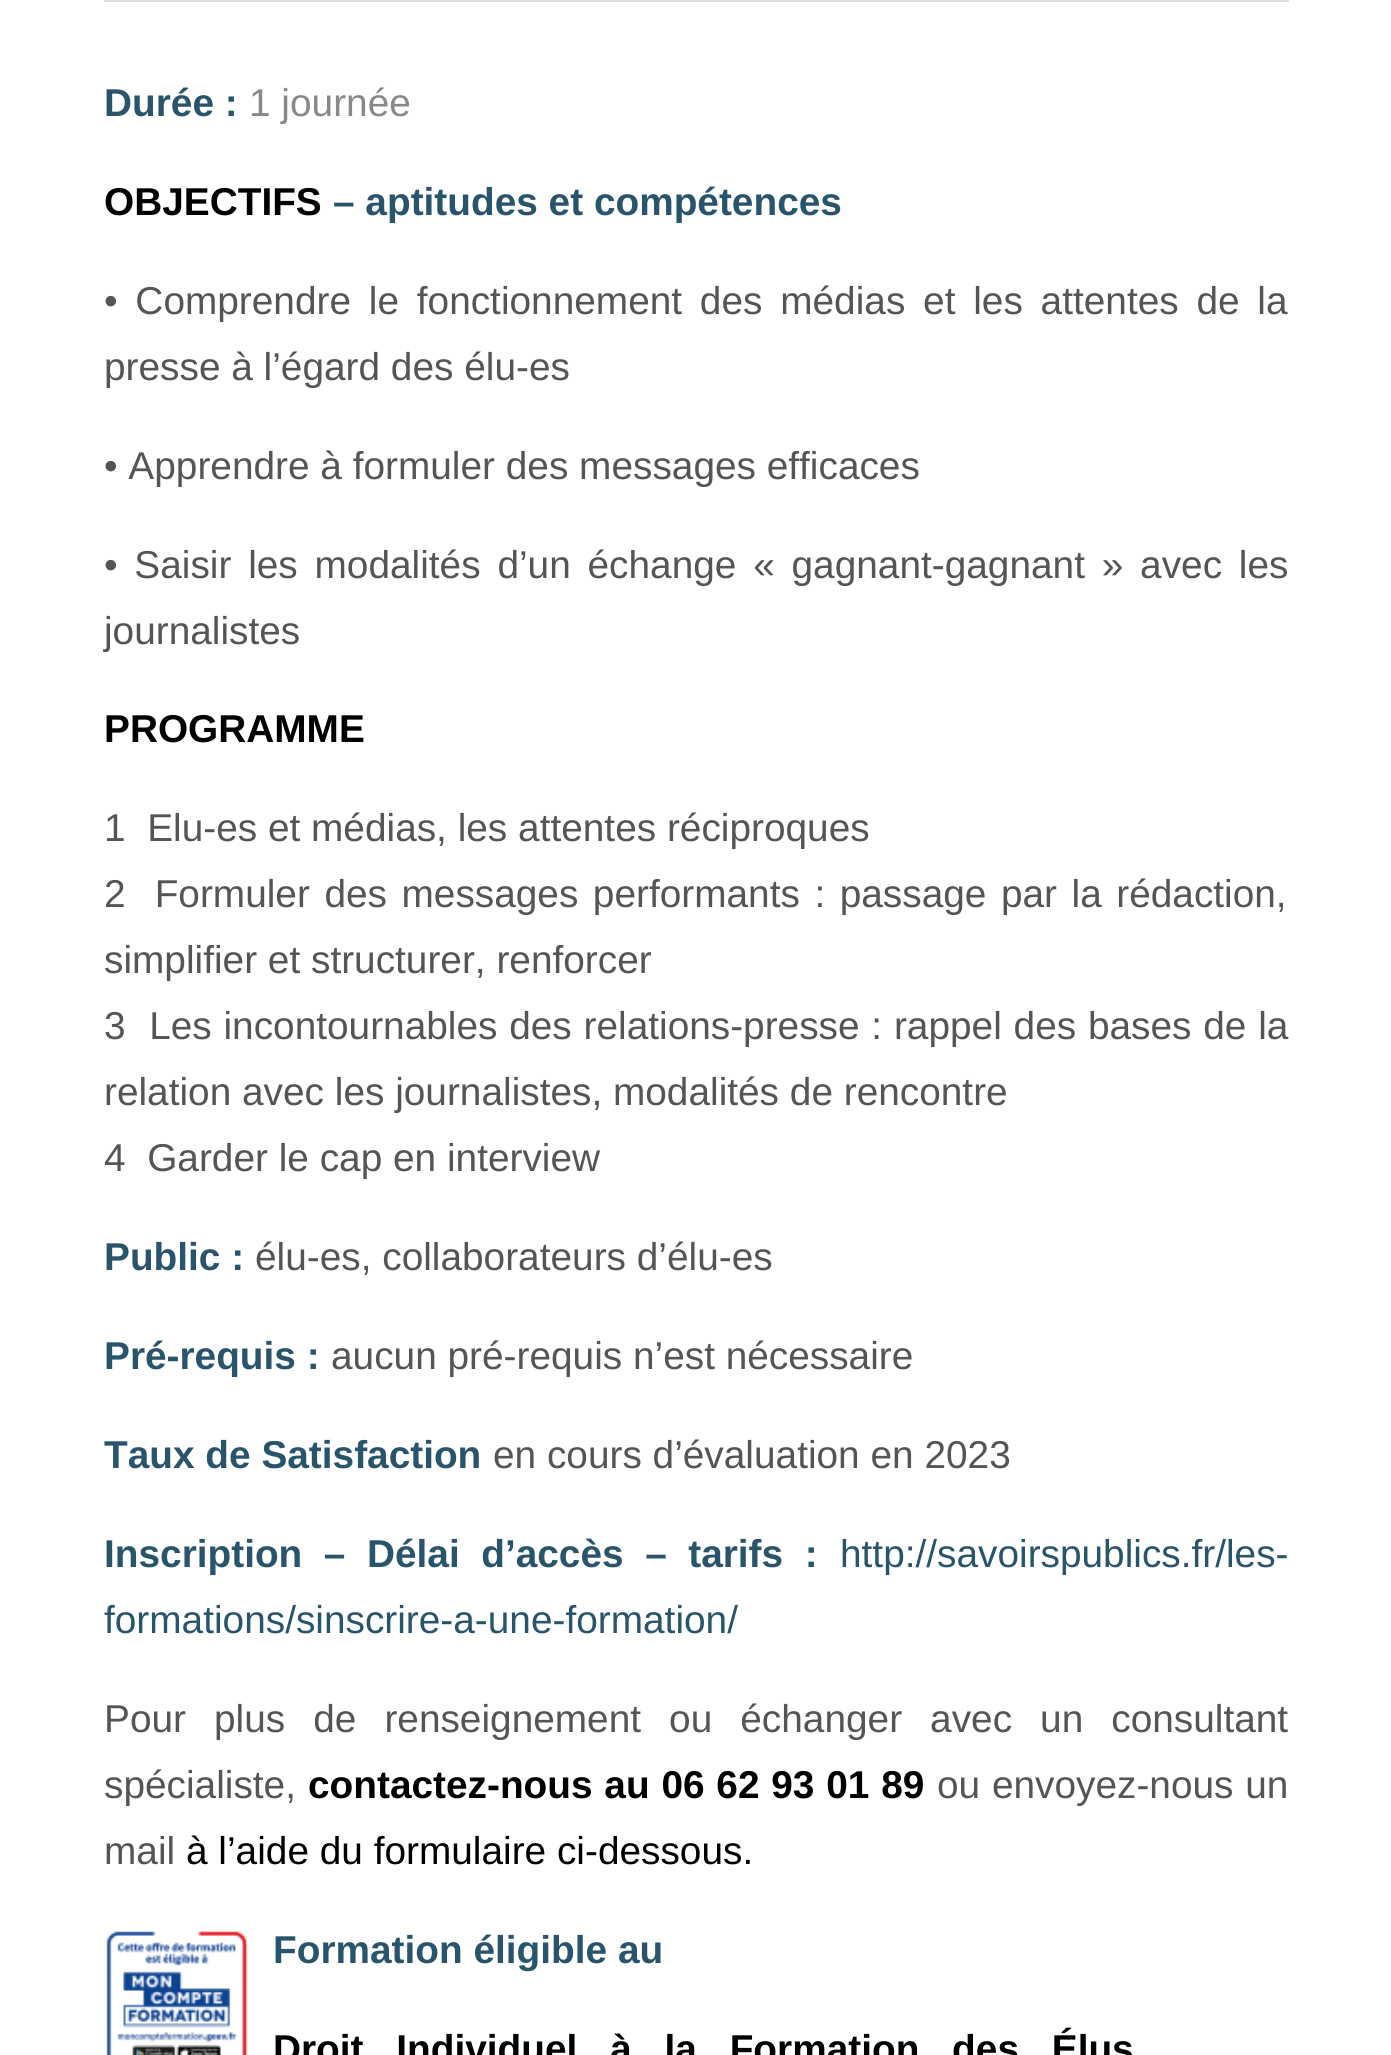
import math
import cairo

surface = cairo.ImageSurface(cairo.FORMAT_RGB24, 1391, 2055)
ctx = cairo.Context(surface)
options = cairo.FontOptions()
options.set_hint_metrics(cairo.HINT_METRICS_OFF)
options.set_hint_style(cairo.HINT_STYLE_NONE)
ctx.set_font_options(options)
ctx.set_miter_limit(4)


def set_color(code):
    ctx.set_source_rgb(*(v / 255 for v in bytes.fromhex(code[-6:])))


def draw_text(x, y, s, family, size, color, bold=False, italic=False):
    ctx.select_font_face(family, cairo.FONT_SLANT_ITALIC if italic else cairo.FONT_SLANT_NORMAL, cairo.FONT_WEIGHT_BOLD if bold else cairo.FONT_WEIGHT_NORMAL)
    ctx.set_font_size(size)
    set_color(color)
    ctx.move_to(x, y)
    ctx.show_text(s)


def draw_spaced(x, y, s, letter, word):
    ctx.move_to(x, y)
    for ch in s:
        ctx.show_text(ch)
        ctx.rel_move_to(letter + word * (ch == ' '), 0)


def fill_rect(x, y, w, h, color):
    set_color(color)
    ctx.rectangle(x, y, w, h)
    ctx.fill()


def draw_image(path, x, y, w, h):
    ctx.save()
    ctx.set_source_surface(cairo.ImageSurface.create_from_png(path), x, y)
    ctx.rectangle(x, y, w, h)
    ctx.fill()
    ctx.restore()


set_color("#ffffff")
ctx.paint()
fill_rect(104, 0, 1185, 2, "#dddddd")
draw_text(104, 116, "Durée :", "Liberation Sans", 38.8, "#29556c", bold=True)
draw_text(249, 116, "1 journée", "Liberation Sans", 38.8, "#888888")
draw_text(104, 215, "OBJECTIFS", "Liberation Sans", 38.8, "#000000", bold=True)
draw_text(333, 215, "– aptitudes et compétences", "Liberation Sans", 38.8, "#29556c", bold=True)
ctx.select_font_face("Liberation Sans")
set_color("#555555")
draw_spaced(104, 314, "• Comprendre le fonctionnement des médias et les attentes de la", 0, 7)
draw_text(104, 380, "presse à l’égard des élu-es", "Liberation Sans", 38.8, "#555555")
draw_text(104, 479, "• Apprendre à formuler des messages efficaces", "Liberation Sans", 38.8, "#555555")
draw_spaced(104, 578, "• Saisir les modalités d’un échange « gagnant-gagnant » avec les", 0, 6)
draw_text(104, 644, "journalistes", "Liberation Sans", 38.8, "#555555")
draw_text(104, 742, "PROGRAMME", "Liberation Sans", 38.8, "#000000", bold=True)
draw_text(104, 841, "1  Elu-es et médias, les attentes réciproques", "Liberation Sans", 38.8, "#555555")
draw_spaced(104, 907, "2  Formuler des messages performants : passage par la rédaction,", 0, 3.75)
draw_text(104, 973, "simplifier et structurer, renforcer", "Liberation Sans", 38.8, "#555555")
draw_spaced(104, 1039, "3  Les incontournables des relations-presse : rappel des bases de la", 0, 1)
draw_text(104, 1105, "relation avec les journalistes, modalités de rencontre", "Liberation Sans", 38.8, "#555555")
draw_text(104, 1171, "4  Garder le cap en interview", "Liberation Sans", 38.8, "#555555")
draw_text(104, 1270, "Public :", "Liberation Sans", 38.8, "#29556c", bold=True)
draw_text(255, 1270, "élu-es, collaborateurs d’élu-es", "Liberation Sans", 38.8, "#555555")
draw_text(104, 1369, "Pré-requis :", "Liberation Sans", 38.8, "#29556c", bold=True)
draw_text(331, 1369, "aucun pré-requis n’est nécessaire", "Liberation Sans", 38.8, "#555555")
draw_text(104, 1468, "Taux de Satisfaction", "Liberation Sans", 38.8, "#29556c", bold=True)
draw_text(493, 1468, "en cours d’évaluation en 2023", "Liberation Sans", 38.8, "#555555")
ctx.select_font_face("Liberation Sans", cairo.FONT_SLANT_NORMAL, cairo.FONT_WEIGHT_BOLD)
set_color("#29556c")
draw_spaced(104, 1567, "Inscription – Délai d’accès – tarifs :", 0, 10.75)
draw_text(840, 1567, "http://savoirspublics.fr/les-", "Liberation Sans", 38.8, "#29556c")
draw_text(104, 1633, "formations/sinscrire-a-une-formation/", "Liberation Sans", 38.8, "#29556c")
set_color("#555555")
draw_spaced(104, 1732, "Pour plus de renseignement ou échanger avec un consultant", 0, 17.25)
draw_text(104, 1798, "spécialiste,", "Liberation Sans", 38.8, "#555555")
ctx.select_font_face("Liberation Sans", cairo.FONT_SLANT_NORMAL, cairo.FONT_WEIGHT_BOLD)
set_color("#000000")
draw_spaced(308, 1798, "contactez-nous au 06 62 93 01 89", 0, 1)
ctx.select_font_face("Liberation Sans")
set_color("#555555")
draw_spaced(937, 1798, "ou envoyez-nous un", 0, 1)
draw_text(104, 1864, "mail", "Liberation Sans", 38.8, "#555555")
draw_text(186, 1864, "à l’aide du formulaire ci-dessous.", "Liberation Sans", 38.8, "#000000")
draw_image("assets/img1.png", 106, 1931, 142, 124)
draw_text(273, 1963, "Formation éligible au", "Liberation Sans", 38.8, "#29556c", bold=True)
set_color("#000000")
draw_spaced(273, 2062, "Droit Individuel à la Formation des Élus", 0, 22)
surface.write_to_png("output.png")
